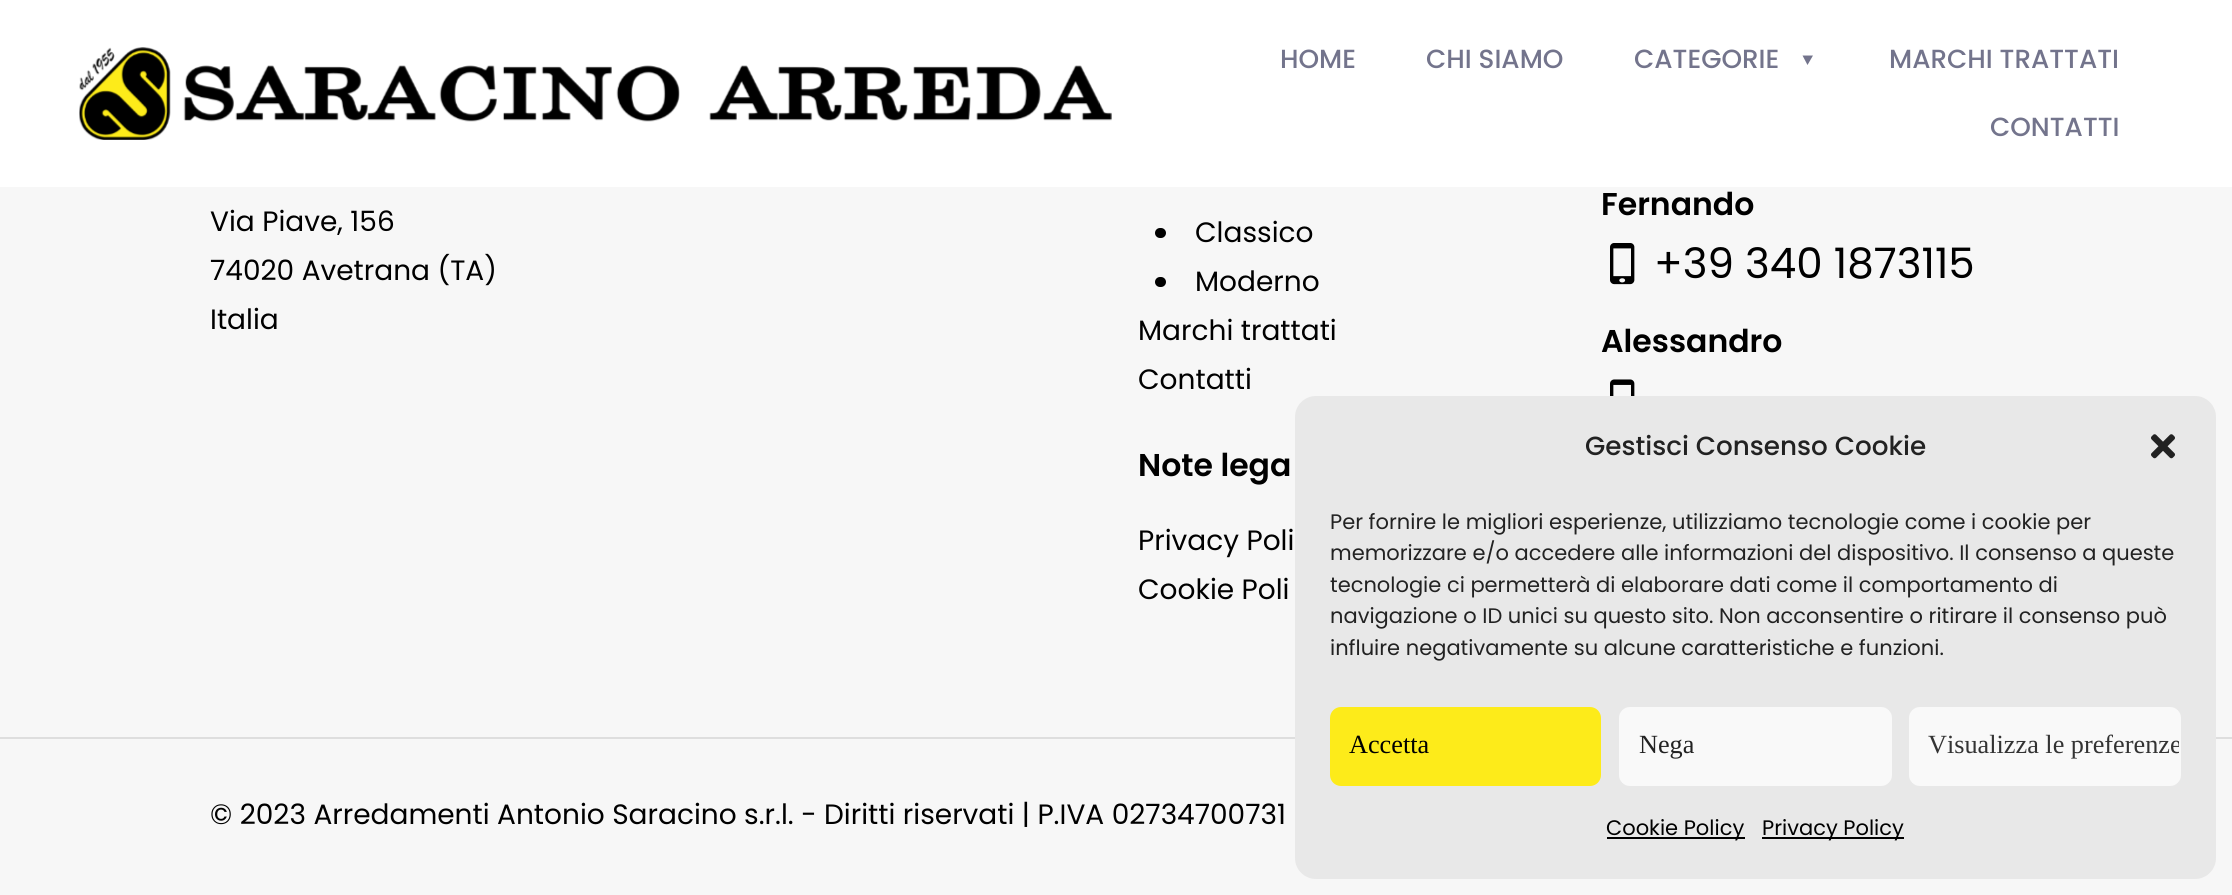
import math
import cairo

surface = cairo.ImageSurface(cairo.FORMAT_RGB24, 2232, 895)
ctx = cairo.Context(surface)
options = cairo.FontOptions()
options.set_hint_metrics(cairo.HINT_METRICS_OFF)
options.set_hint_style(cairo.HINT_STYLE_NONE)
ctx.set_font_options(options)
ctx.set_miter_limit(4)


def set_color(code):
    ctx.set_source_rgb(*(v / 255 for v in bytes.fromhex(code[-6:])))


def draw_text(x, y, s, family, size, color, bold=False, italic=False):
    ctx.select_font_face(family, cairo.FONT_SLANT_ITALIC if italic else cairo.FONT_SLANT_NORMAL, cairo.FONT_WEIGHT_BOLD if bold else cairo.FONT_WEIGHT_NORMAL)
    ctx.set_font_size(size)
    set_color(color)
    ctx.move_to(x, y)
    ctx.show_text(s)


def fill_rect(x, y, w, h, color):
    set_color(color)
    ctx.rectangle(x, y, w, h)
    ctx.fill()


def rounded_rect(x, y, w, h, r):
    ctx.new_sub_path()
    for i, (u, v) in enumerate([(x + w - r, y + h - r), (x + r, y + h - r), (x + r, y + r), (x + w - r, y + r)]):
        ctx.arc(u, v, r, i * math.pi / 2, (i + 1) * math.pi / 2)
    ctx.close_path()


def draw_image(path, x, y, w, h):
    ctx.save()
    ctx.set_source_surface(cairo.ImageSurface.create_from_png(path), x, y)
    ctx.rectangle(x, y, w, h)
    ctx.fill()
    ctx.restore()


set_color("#f7f7f7")
ctx.paint()
fill_rect(0, 0, 2232, 187, "#ffffff")
draw_image("assets/img1.png", 79, 47, 1033, 93)
draw_text(1280, 68, "HOME", "Poppins Medium", 26.25, "#73748c")
draw_text(1426, 68, "CHI SIAMO", "Poppins Medium", 26.25, "#73748c")
draw_text(1634, 68, "CATEGORIE", "Poppins Medium", 26.25, "#73748c")
ctx.new_path()
ctx.move_to(1813, 55.5)
ctx.line_to(1807.5, 65)
ctx.line_to(1802.5, 55.5)
ctx.close_path()
ctx.fill()
draw_text(1889, 68, "MARCHI TRATTATI", "Poppins Medium", 26.25, "#73748c")
draw_text(1990, 136, "CONTATTI", "Poppins Medium", 26.25, "#73748c")
draw_text(210, 231, "Via Piave, 156", "Poppins", 28, "#000000")
draw_text(210, 280, "74020 Avetrana (TA)", "Poppins", 28, "#000000")
draw_text(210, 329, "Italia", "Poppins", 28, "#000000")
rounded_rect(1155, 228, 11, 10, 5)
ctx.fill()
draw_text(1195, 242, "Classico", "Poppins", 28, "#000000")
rounded_rect(1155, 277, 11, 10, 5)
ctx.fill()
draw_text(1195, 291, "Moderno", "Poppins", 28, "#000000")
draw_text(1138, 340, "Marchi trattati", "Poppins", 28, "#000000")
draw_text(1138, 389, "Contatti", "Poppins", 28, "#000000")
draw_text(1138, 476, "Note lega", "Poppins SemiBold", 31.5, "#000000")
draw_text(1138, 550, "Privacy Poli", "Poppins", 28, "#000000")
draw_text(1138, 599, "Cookie Poli", "Poppins", 28, "#000000")
draw_text(1601, 215, "Fernando", "Poppins SemiBold", 31.5, "#000000")
draw_image("assets/img2.png", 1610, 243, 25, 42)
draw_text(1654, 278, "+39 340 1873115", "Poppins", 42, "#000000")
draw_text(1601, 352, "Alessandro", "Poppins SemiBold", 31.5, "#000000")
draw_image("assets/img3.png", 1610, 379, 25, 17)
fill_rect(0, 737, 2232, 2, "#dedede")
draw_text(210, 824, "© 2023 Arredamenti Antonio Saracino s.r.l. - Diritti riservati | P.IVA 02734700731", "Poppins", 28, "#000000")
set_color("#e8e8e8")
rounded_rect(1295, 396, 921, 483, 21)
ctx.fill()
draw_text(1585, 455, "Gestisci Consenso Cookie", "Poppins Medium", 26.25, "#222222")
draw_image("assets/img4.png", 2151, 434, 24, 25)
draw_text(1330, 529, "Per fornire le migliori esperienze, utilizziamo tecnologie come i cookie per", "Poppins", 21, "#222222")
draw_text(1330, 560, "memorizzare e/o accedere alle informazioni del dispositivo. Il consenso a queste", "Poppins", 21, "#222222")
draw_text(1330, 592, "tecnologie ci permetterà di elaborare dati come il comportamento di", "Poppins", 21, "#222222")
draw_text(1330, 623, "navigazione o ID unici su questo sito. Non acconsentire o ritirare il consenso può", "Poppins", 21, "#222222")
draw_text(1330, 655, "influire negativamente su alcune caratteristiche e funzioni.", "Poppins", 21, "#222222")
set_color("#fdeb1a")
rounded_rect(1331, 708, 269, 77, 10)
ctx.fill_preserve()
ctx.stroke()
draw_text(1349, 753, "Accetta", "Liberation Serif", 26.25, "#000000")
set_color("#f9f9f9")
rounded_rect(1620, 708, 271, 77, 10)
ctx.fill_preserve()
ctx.stroke()
draw_text(1639, 753, "Nega", "Liberation Serif", 26.25, "#222222")
set_color("#f9f9f9")
rounded_rect(1910, 708, 270, 77, 10)
ctx.fill_preserve()
ctx.stroke()
ctx.save()
rounded_rect(1911, 709, 268, 75, 9)
ctx.clip()
draw_text(1928, 753, "Visualizza le preferenze", "Liberation Serif", 26.25, "#333333")
ctx.restore()
fill_rect(1607, 837, 138, 2, "#000000")
draw_text(1606, 835, "Cookie Policy", "Poppins", 21, "#000000")
fill_rect(1762, 837, 142, 2, "#000000")
draw_text(1762, 835, "Privacy Policy", "Poppins", 21, "#000000")
surface.write_to_png("output.png")
